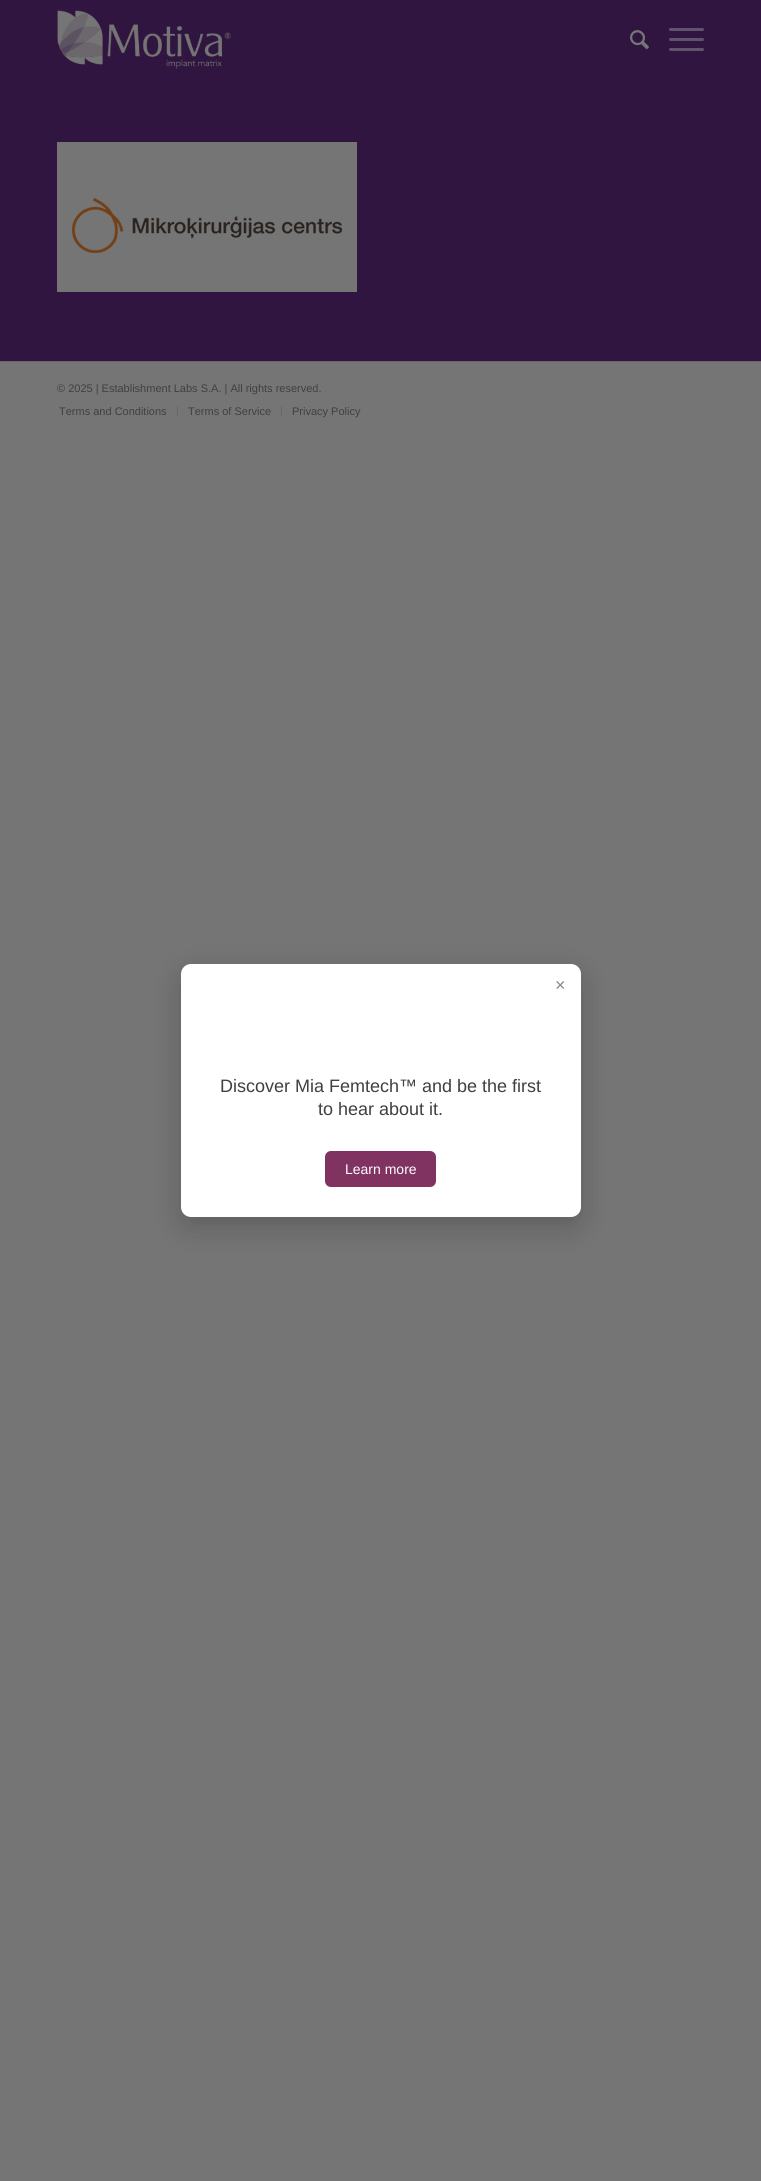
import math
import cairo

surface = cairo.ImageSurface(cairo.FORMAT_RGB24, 761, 2181)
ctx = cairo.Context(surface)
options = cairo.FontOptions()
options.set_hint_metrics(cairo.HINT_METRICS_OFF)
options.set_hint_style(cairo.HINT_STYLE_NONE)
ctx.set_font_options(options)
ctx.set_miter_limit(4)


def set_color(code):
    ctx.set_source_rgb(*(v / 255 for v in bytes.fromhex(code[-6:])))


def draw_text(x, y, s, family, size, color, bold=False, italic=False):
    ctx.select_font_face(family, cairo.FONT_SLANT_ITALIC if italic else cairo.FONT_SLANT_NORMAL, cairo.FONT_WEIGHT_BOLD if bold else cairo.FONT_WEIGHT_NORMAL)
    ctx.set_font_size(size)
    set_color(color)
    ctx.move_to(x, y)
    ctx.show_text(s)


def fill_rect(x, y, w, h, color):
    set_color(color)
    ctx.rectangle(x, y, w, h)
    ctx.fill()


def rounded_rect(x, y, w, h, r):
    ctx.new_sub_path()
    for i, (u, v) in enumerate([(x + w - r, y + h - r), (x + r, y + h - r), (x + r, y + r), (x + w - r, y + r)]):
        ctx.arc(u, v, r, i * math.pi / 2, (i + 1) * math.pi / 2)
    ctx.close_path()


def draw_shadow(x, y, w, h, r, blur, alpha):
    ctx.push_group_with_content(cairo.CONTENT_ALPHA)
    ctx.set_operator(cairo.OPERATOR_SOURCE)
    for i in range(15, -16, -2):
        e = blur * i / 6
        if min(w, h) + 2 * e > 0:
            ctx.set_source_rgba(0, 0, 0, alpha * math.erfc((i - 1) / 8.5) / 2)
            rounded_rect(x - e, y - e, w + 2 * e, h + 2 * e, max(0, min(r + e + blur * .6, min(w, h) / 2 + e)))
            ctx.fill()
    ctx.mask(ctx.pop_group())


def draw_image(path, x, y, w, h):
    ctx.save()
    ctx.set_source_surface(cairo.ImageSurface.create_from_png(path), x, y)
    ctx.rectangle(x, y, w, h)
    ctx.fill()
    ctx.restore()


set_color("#757575")
ctx.paint()
fill_rect(0, 0, 761, 361, "#2f153f")
draw_image("assets/img1.png", 57, 10, 174, 59)
draw_image("assets/img2.png", 630, 30, 19, 20)
set_color("#61536b")
rounded_rect(669, 38, 35, 3, 1.5)
ctx.fill()
rounded_rect(669, 28, 35, 3, 1.5)
ctx.fill()
rounded_rect(669, 48, 35, 3, 1.5)
ctx.fill()
draw_image("assets/img3.png", 57, 142, 300, 150)
fill_rect(0, 361, 761, 1, "#676767")
draw_text(57, 392, "© 2025 | Establishment Labs S.A. | All rights reserved.", "Liberation Sans", 11, "#404040")
draw_text(59, 415, "Terms and Conditions", "Liberation Sans", 11, "#404040")
fill_rect(177, 406, 1, 10, "#676767")
draw_text(188, 415, "Terms of Service", "Liberation Sans", 11, "#404040")
fill_rect(281, 406, 1, 10, "#676767")
draw_text(292, 415, "Privacy Policy", "Liberation Sans", 11, "#404040")
set_color("#000000")
draw_shadow(181, 974, 400, 253, 10, 15, 0.2)
set_color("#ffffff")
rounded_rect(181, 964, 400, 253, 10)
ctx.fill()
draw_text(555, 991, "×", "Liberation Sans", 18, "#888888")
draw_text(220, 1092, "Discover Mia Femtech™ and be the first", "Liberation Sans", 18, "#404040")
draw_text(318, 1115, "to hear about it.", "Liberation Sans", 18, "#404040")
set_color("#803361")
rounded_rect(325, 1151, 111, 36, 6)
ctx.fill()
draw_text(345, 1174, "Learn more", "Liberation Sans", 14, "#ffffff")
surface.write_to_png("output.png")
